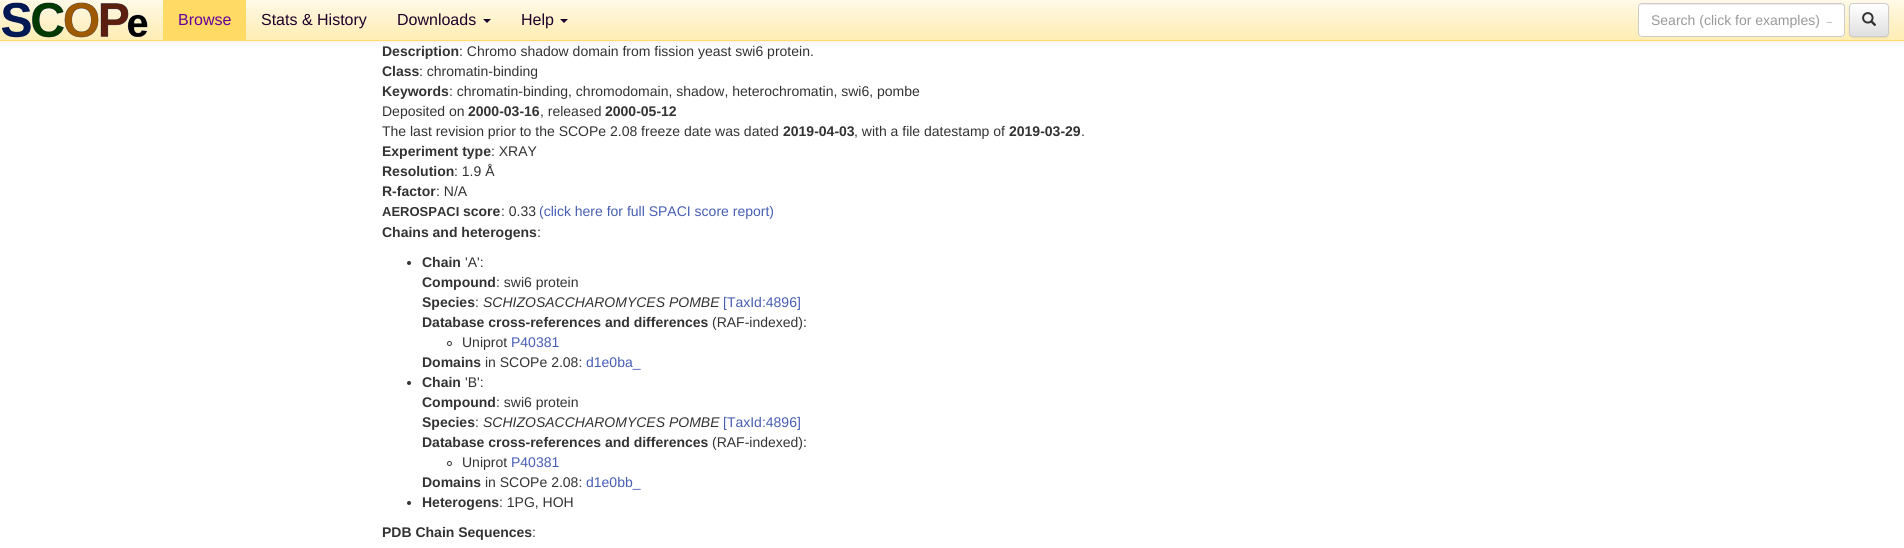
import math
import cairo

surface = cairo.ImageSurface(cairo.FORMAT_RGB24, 1904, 548)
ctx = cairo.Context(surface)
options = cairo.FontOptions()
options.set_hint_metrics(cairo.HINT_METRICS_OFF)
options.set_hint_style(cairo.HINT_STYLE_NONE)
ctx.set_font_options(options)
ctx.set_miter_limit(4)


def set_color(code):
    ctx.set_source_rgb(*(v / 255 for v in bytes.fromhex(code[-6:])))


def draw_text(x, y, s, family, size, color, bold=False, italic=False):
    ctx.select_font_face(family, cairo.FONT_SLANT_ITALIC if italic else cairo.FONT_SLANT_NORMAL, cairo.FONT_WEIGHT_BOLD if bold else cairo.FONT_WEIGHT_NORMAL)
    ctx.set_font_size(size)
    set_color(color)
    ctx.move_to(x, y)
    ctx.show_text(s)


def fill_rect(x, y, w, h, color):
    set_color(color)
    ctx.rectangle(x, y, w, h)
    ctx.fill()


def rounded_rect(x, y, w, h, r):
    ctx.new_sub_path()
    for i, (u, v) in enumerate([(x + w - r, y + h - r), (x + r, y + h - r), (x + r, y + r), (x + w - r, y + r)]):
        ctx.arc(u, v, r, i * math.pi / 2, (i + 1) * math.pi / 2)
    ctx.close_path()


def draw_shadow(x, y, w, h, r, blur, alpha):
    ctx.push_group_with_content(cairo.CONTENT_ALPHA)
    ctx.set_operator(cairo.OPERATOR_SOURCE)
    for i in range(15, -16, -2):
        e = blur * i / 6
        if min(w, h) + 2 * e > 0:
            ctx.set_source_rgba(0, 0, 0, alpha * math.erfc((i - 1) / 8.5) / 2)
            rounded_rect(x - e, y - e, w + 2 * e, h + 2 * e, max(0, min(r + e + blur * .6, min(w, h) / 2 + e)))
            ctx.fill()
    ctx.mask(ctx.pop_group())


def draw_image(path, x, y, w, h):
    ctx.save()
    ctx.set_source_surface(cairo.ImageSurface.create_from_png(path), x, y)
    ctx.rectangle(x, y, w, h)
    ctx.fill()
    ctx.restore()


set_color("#ffffff")
ctx.paint()
set_color("#000000")
draw_shadow(0, 1, 1904, 41, 0, 2.5, 0.07)
gradient = cairo.LinearGradient(952, 0, 952, 40)
gradient.add_color_stop_rgba(0, 1, 0.976, 0.902, 1)
gradient.add_color_stop_rgba(1, 1, 0.929, 0.702, 1)
ctx.set_source(gradient)
ctx.rectangle(0, 1, 1904, 39)
ctx.fill()
fill_rect(0, 0, 1904, 1, "#fffae9")
fill_rect(0, 40, 1904, 1, "#ffda65")
draw_image("assets/img1.png", 2, 2, 146, 36)
fill_rect(163, 0, 83, 40, "#ffda65")
draw_text(178, 25, "Browse", "Liberation Sans", 16, "#660099")
draw_text(261, 25, "Stats & History", "Liberation Sans", 16, "#1d002b")
draw_text(397, 25, "Downloads", "Liberation Sans", 16, "#1d002b")
ctx.new_path()
ctx.move_to(483, 19)
ctx.line_to(491, 19)
ctx.line_to(487, 23)
ctx.close_path()
ctx.fill()
draw_text(521, 25, "Help", "Liberation Sans", 16, "#1d002b")
ctx.new_path()
ctx.move_to(560, 19)
ctx.line_to(568, 19)
ctx.line_to(564, 23)
ctx.close_path()
ctx.fill()
set_color("#ffffff")
rounded_rect(1638, 3, 207, 34, 4)
ctx.fill()
set_color("#ececec")
ctx.new_path()
ctx.move_to(1642, 5)
ctx.line_to(1841, 5)
ctx.curve_to(1843, 5, 1844, 6, 1844, 8)
ctx.curve_to(1844, 6, 1843, 4, 1841, 4)
ctx.line_to(1642, 4)
ctx.curve_to(1640, 4, 1639, 6, 1639, 8)
ctx.curve_to(1639, 6, 1640, 5, 1642, 5)
ctx.close_path()
ctx.fill()
rounded_rect(1638.5, 3.5, 206, 33, 3.5)
set_color("#cccccc")
ctx.set_line_width(1)
ctx.stroke()
ctx.save()
ctx.rectangle(1651, 12, 181, 16)
ctx.clip()
draw_text(1651, 25, "Search (click for examples) →", "Liberation Sans", 14, "#999999")
ctx.restore()
set_color("#000000")
draw_shadow(1849, 4, 40, 34, 4, 0.5, 0.07)
ctx.save()
rounded_rect(1849, 3, 40, 34, 4)
ctx.clip()
gradient = cairo.LinearGradient(1869, 4, 1869, 36)
gradient.add_color_stop_rgba(0, 1, 1, 1, 1)
gradient.add_color_stop_rgba(1, 0.878, 0.878, 0.878, 1)
ctx.set_source(gradient)
ctx.rectangle(1849, 4, 40, 32)
ctx.fill()
ctx.restore()
rounded_rect(1849.5, 3.5, 39, 33, 3.5)
set_color("#cccccc")
ctx.stroke()
draw_image("assets/img2.png", 1862, 12, 15, 14)
draw_text(382, 56, "Description", "Liberation Sans", 14, "#333333", bold=True)
draw_text(459, 56, ": Chromo shadow domain from fission yeast swi6 protein.", "Liberation Sans", 14, "#333333")
draw_text(382, 76, "Class", "Liberation Sans", 14, "#333333", bold=True)
draw_text(419, 76, ": chromatin-binding", "Liberation Sans", 14, "#333333")
draw_text(382, 96, "Keywords", "Liberation Sans", 14, "#333333", bold=True)
draw_text(449, 96, ": chromatin-binding, chromodomain, shadow, heterochromatin, swi6, pombe", "Liberation Sans", 14, "#333333")
draw_text(382, 116, "Deposited on", "Liberation Sans", 14, "#333333")
draw_text(468, 116, "2000-03-16", "Liberation Sans", 14, "#333333", bold=True)
draw_text(540, 116, ", released", "Liberation Sans", 14, "#333333")
draw_text(605, 116, "2000-05-12", "Liberation Sans", 14, "#333333", bold=True)
draw_text(382, 136, "The last revision prior to the SCOPe 2.08 freeze date was dated", "Liberation Sans", 14, "#333333")
draw_text(783, 136, "2019-04-03", "Liberation Sans", 14, "#333333", bold=True)
draw_text(854, 136, ", with a file datestamp of", "Liberation Sans", 14, "#333333")
draw_text(1009, 136, "2019-03-29", "Liberation Sans", 14, "#333333", bold=True)
draw_text(1081, 136, ".", "Liberation Sans", 14, "#333333")
draw_text(382, 156, "Experiment type", "Liberation Sans", 14, "#333333", bold=True)
draw_text(491, 156, ": XRAY", "Liberation Sans", 14, "#333333")
draw_text(382, 176, "Resolution", "Liberation Sans", 14, "#333333", bold=True)
draw_text(454, 176, ": 1.9 Å", "Liberation Sans", 14, "#333333")
draw_text(382, 196, "R-factor", "Liberation Sans", 14, "#333333", bold=True)
draw_text(436, 196, ": N/A", "Liberation Sans", 14, "#333333")
draw_text(382, 216, "AEROSPACI", "Liberation Sans", 13, "#333333", bold=True)
draw_text(463, 216, "score", "Liberation Sans", 14, "#333333", bold=True)
draw_text(501, 216, ": 0.33", "Liberation Sans", 14, "#333333")
draw_text(539, 216, "(click here for full SPACI score report)", "Liberation Sans", 14, "#465eb4")
draw_text(382, 237, "Chains and heterogens", "Liberation Sans", 14, "#333333", bold=True)
draw_text(537, 237, ":", "Liberation Sans", 14, "#333333")
ctx.new_path()
ctx.arc(409, 263, 2, 0, 2 * math.pi)
ctx.fill()
draw_text(422, 267, "Chain", "Liberation Sans", 14, "#333333", bold=True)
draw_text(465, 267, "'A':", "Liberation Sans", 14, "#333333")
draw_text(422, 287, "Compound", "Liberation Sans", 14, "#333333", bold=True)
draw_text(496, 287, ": swi6 protein", "Liberation Sans", 14, "#333333")
draw_text(422, 307, "Species", "Liberation Sans", 14, "#333333", bold=True)
draw_text(475, 307, ":", "Liberation Sans", 14, "#333333")
draw_text(483, 307, "SCHIZOSACCHAROMYCES POMBE", "Liberation Sans", 14, "#333333", italic=True)
draw_text(723, 307, "[TaxId:4896]", "Liberation Sans", 14, "#465eb4")
draw_text(422, 327, "Database cross-references and differences", "Liberation Sans", 14, "#333333", bold=True)
draw_text(712, 327, "(RAF-indexed):", "Liberation Sans", 14, "#333333")
ctx.new_path()
ctx.arc(449.5, 343.5, 2, 0, 2 * math.pi)
ctx.stroke()
draw_text(462, 347, "Uniprot", "Liberation Sans", 14, "#333333")
draw_text(511, 347, "P40381", "Liberation Sans", 14, "#465eb4")
draw_text(422, 367, "Domains", "Liberation Sans", 14, "#333333", bold=True)
draw_text(485, 367, "in SCOPe 2.08:", "Liberation Sans", 14, "#333333")
draw_text(586, 367, "d1e0ba_", "Liberation Sans", 14, "#465eb4")
set_color("#333333")
ctx.new_path()
ctx.arc(409, 383, 2, 0, 2 * math.pi)
ctx.fill()
draw_text(422, 387, "Chain", "Liberation Sans", 14, "#333333", bold=True)
draw_text(465, 387, "'B':", "Liberation Sans", 14, "#333333")
draw_text(422, 407, "Compound", "Liberation Sans", 14, "#333333", bold=True)
draw_text(496, 407, ": swi6 protein", "Liberation Sans", 14, "#333333")
draw_text(422, 427, "Species", "Liberation Sans", 14, "#333333", bold=True)
draw_text(475, 427, ":", "Liberation Sans", 14, "#333333")
draw_text(483, 427, "SCHIZOSACCHAROMYCES POMBE", "Liberation Sans", 14, "#333333", italic=True)
draw_text(723, 427, "[TaxId:4896]", "Liberation Sans", 14, "#465eb4")
draw_text(422, 447, "Database cross-references and differences", "Liberation Sans", 14, "#333333", bold=True)
draw_text(712, 447, "(RAF-indexed):", "Liberation Sans", 14, "#333333")
ctx.new_path()
ctx.arc(449.5, 463.5, 2, 0, 2 * math.pi)
ctx.stroke()
draw_text(462, 467, "Uniprot", "Liberation Sans", 14, "#333333")
draw_text(511, 467, "P40381", "Liberation Sans", 14, "#465eb4")
draw_text(422, 487, "Domains", "Liberation Sans", 14, "#333333", bold=True)
draw_text(485, 487, "in SCOPe 2.08:", "Liberation Sans", 14, "#333333")
draw_text(586, 487, "d1e0bb_", "Liberation Sans", 14, "#465eb4")
set_color("#333333")
ctx.new_path()
ctx.arc(409, 503, 2, 0, 2 * math.pi)
ctx.fill()
draw_text(422, 507, "Heterogens", "Liberation Sans", 14, "#333333", bold=True)
draw_text(499, 507, ": 1PG, HOH", "Liberation Sans", 14, "#333333")
draw_text(382, 537, "PDB Chain Sequences", "Liberation Sans", 14, "#333333", bold=True)
draw_text(532, 537, ":", "Liberation Sans", 14, "#333333")
surface.write_to_png("output.png")
